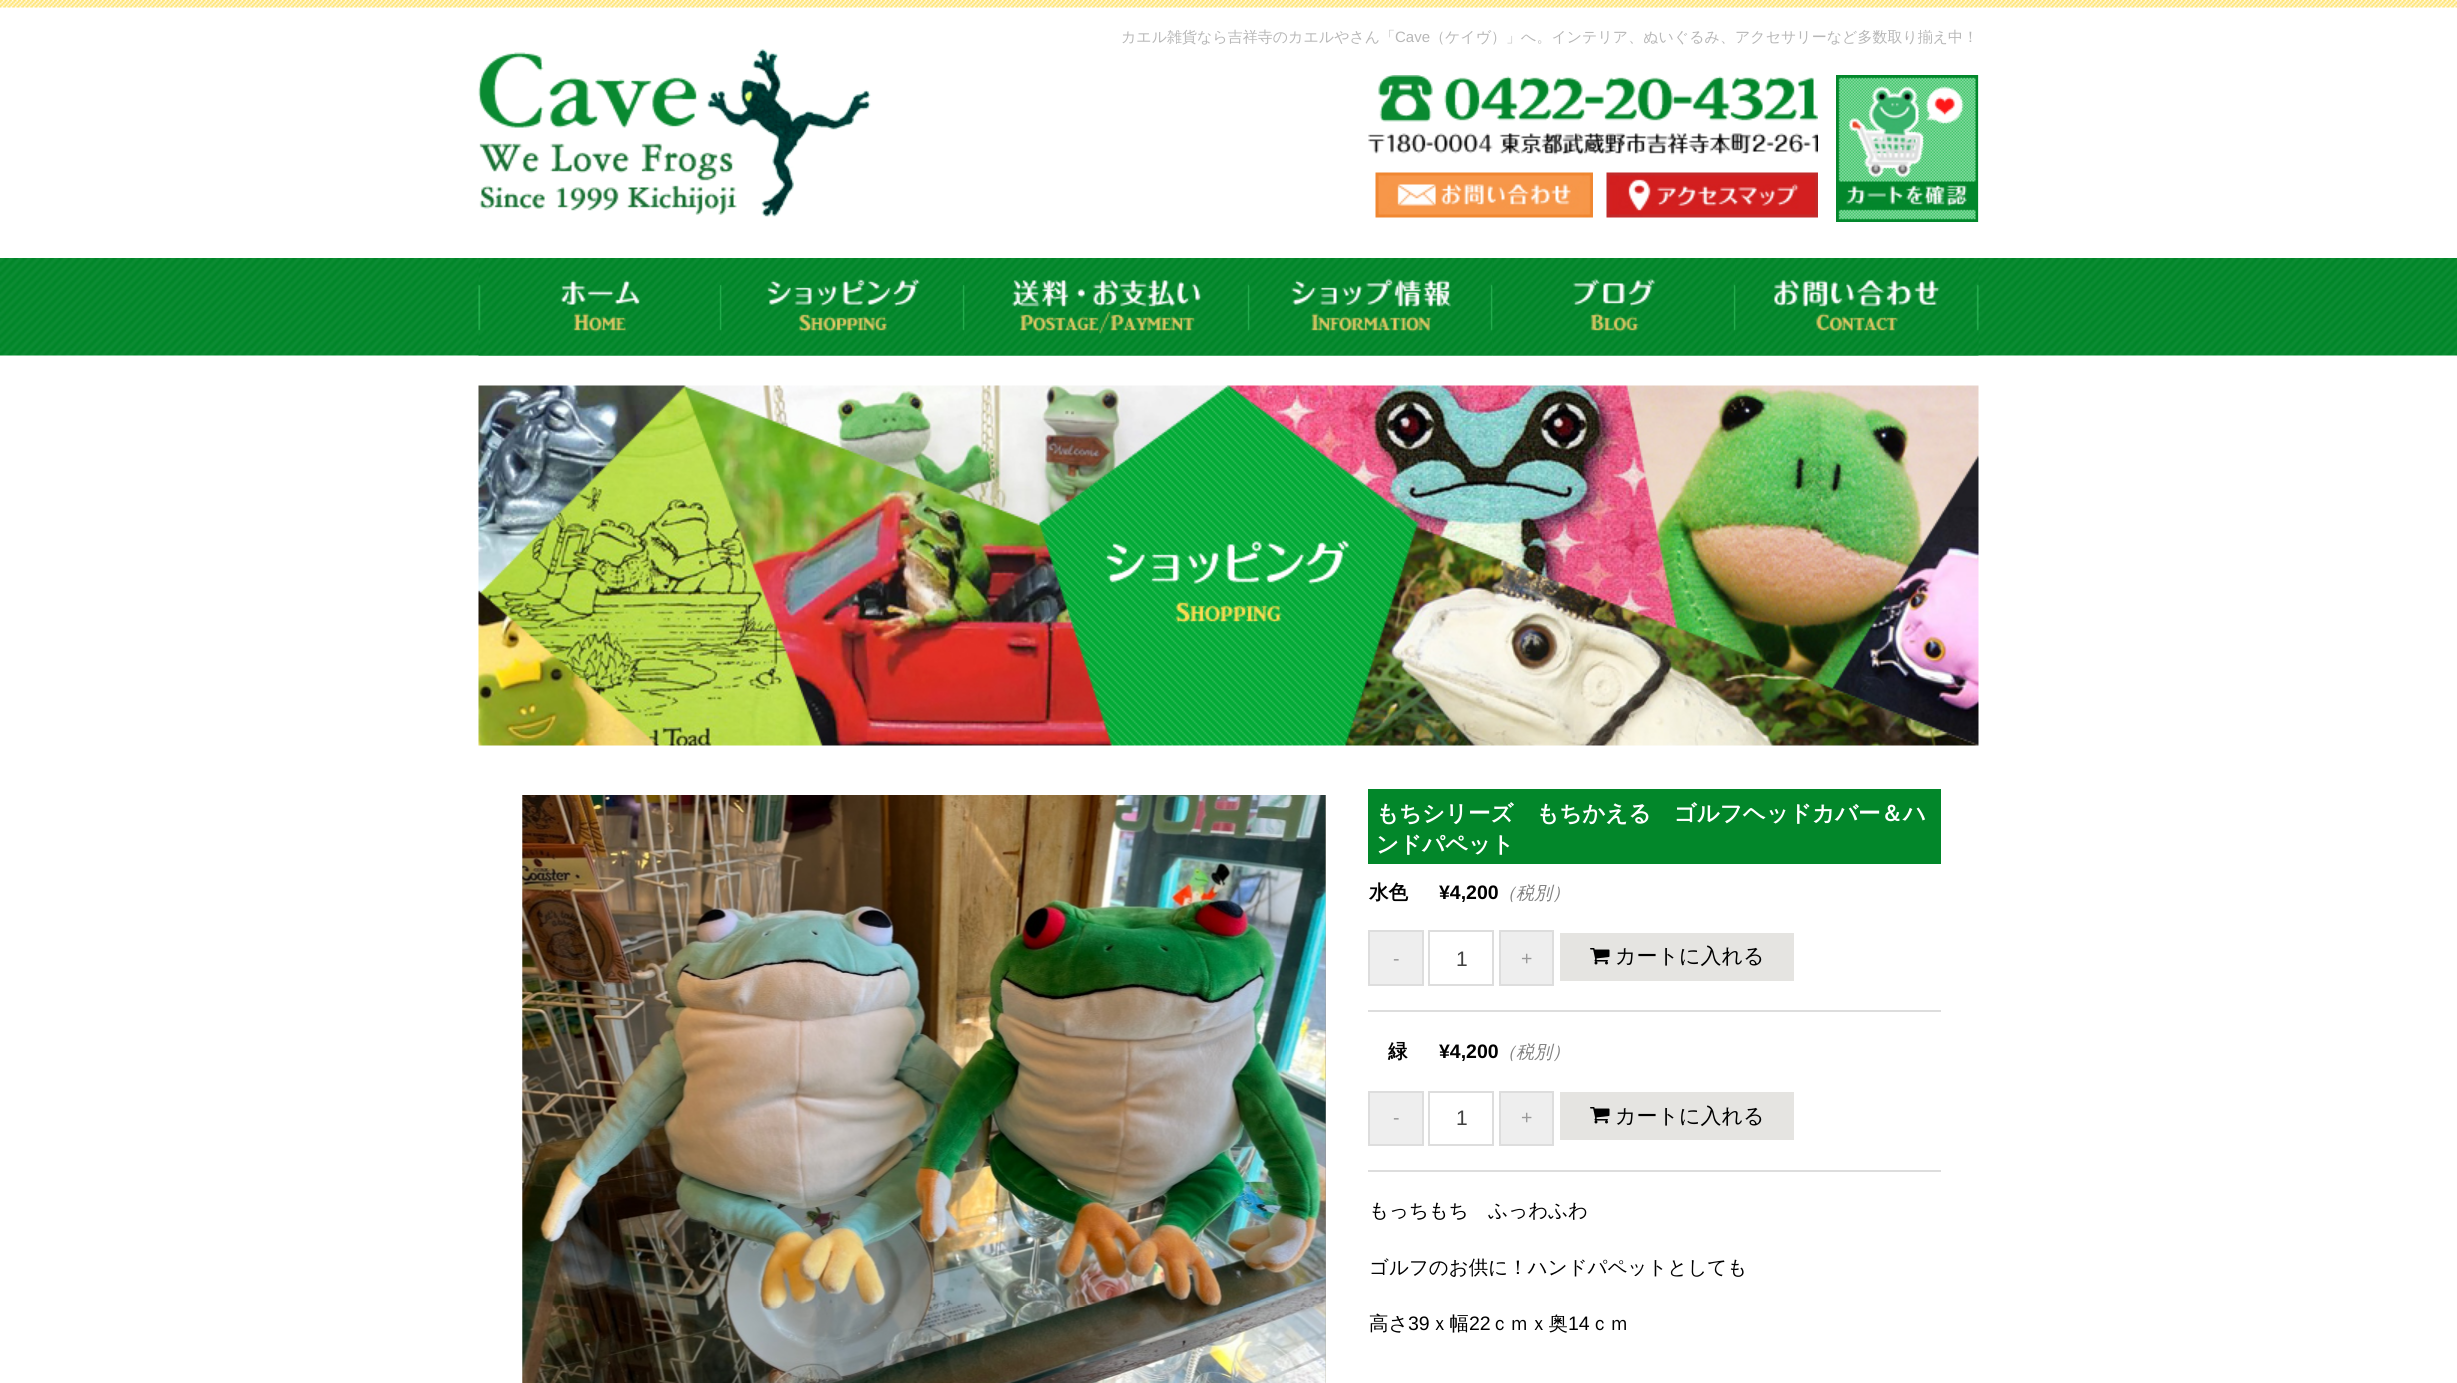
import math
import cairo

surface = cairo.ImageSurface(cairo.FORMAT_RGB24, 2457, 1383)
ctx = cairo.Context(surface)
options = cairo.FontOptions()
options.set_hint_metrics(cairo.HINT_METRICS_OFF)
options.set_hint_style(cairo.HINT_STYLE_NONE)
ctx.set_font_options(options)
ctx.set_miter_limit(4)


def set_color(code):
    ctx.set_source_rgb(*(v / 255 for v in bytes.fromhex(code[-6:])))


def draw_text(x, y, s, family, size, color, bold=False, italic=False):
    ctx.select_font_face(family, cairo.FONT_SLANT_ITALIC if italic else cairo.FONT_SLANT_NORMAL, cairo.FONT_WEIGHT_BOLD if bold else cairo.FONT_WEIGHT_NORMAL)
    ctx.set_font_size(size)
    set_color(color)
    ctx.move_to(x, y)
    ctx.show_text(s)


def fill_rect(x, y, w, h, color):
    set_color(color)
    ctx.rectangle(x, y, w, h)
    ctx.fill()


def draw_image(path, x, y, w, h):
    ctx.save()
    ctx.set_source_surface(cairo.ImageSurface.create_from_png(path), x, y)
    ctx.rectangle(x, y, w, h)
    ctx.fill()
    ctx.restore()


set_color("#ffffff")
ctx.paint()
draw_image("assets/img1.png", 0, 0, 2457, 8)
draw_text(1121, 42, "カエル雑貨なら吉祥寺のカエルやさん「", "WenQuanYi Zen Hei Medium", 15, "#b7b7b7")
draw_text(1395, 42, "Cave", "Liberation Sans", 15, "#b7b7b7")
draw_text(1430, 42, "（ケイヴ）」へ。インテリア、ぬいぐるみ、アクセサリーなど多数取り揃え中！", "WenQuanYi Zen Hei Medium", 15, "#b7b7b7")
draw_image("assets/img2.png", 478, 49, 393, 168)
draw_image("assets/img3.png", 1378, 75, 440, 47)
draw_image("assets/img4.png", 1368, 133, 450, 22)
draw_image("assets/img5.png", 1375, 172, 218, 46)
draw_image("assets/img6.png", 1606, 172, 212, 46)
draw_image("assets/img7.png", 1836, 75, 143, 147)
draw_image("assets/img8.png", 0, 258, 2457, 98)
draw_image("assets/img9.png", 478, 258, 244, 98)
draw_image("assets/img10.png", 721, 258, 244, 98)
draw_image("assets/img11.png", 964, 258, 286, 98)
draw_image("assets/img12.png", 1249, 258, 244, 98)
draw_image("assets/img13.png", 1492, 258, 244, 98)
draw_image("assets/img14.png", 1735, 258, 244, 98)
draw_image("assets/img15.png", 478, 385, 1501, 361)
draw_image("assets/img16.png", 522, 795, 804, 588)
draw_image("assets/img17.png", 1325, 795, 1, 588)
fill_rect(1368, 789, 573, 75, "#02872a")
draw_text(1376, 821, "もちシリーズ　もちかえる　ゴルフヘッドカバー＆ハ", "WenQuanYi Zen Hei", 22.5, "#ffffff", bold=True)
draw_text(1376, 852, "ンドパペット", "WenQuanYi Zen Hei", 22.5, "#ffffff", bold=True)
fill_rect(1368, 1170, 573, 2, "#dddddd")
fill_rect(1368, 1010, 573, 2, "#dddddd")
draw_text(1369, 899, "水色", "WenQuanYi Zen Hei", 19.5, "#000000", bold=True)
draw_text(1439, 899, "¥4,200", "Liberation Sans", 19.5, "#000000", bold=True)
draw_text(1498, 899, "（税別）", "WenQuanYi Zen Hei Medium", 18, "#808080", italic=True)
set_color("#eeeeee")
ctx.rectangle(1369, 931, 54, 54)
ctx.fill_preserve()
set_color("#dddddd")
ctx.stroke()
draw_text(1393, 965, "-", "Liberation Sans", 19.5, "#999999")
ctx.rectangle(1429, 931, 64, 54)
set_color("#dddddd")
ctx.stroke()
draw_text(1456, 966, "1", "Liberation Sans", 21, "#404040")
set_color("#eeeeee")
ctx.rectangle(1500, 931, 53, 54)
ctx.fill_preserve()
set_color("#dddddd")
ctx.stroke()
draw_text(1521, 965, "+", "Liberation Sans", 19.5, "#999999")
fill_rect(1560, 933, 234, 48, "#e5e4e1")
draw_image("assets/img18.png", 1590, 948, 20, 17)
draw_text(1615, 963, "カートに入れる", "WenQuanYi Zen Hei Medium", 21, "#000000")
draw_text(1388, 1058, "緑", "WenQuanYi Zen Hei", 19.5, "#000000", bold=True)
draw_text(1439, 1058, "¥4,200", "Liberation Sans", 19.5, "#000000", bold=True)
draw_text(1498, 1058, "（税別）", "WenQuanYi Zen Hei Medium", 18, "#808080", italic=True)
set_color("#eeeeee")
ctx.rectangle(1369, 1092, 54, 53)
ctx.fill_preserve()
set_color("#dddddd")
ctx.stroke()
draw_text(1393, 1124, "-", "Liberation Sans", 19.5, "#999999")
ctx.rectangle(1429, 1092, 64, 53)
set_color("#dddddd")
ctx.stroke()
draw_text(1456, 1125, "1", "Liberation Sans", 21, "#404040")
set_color("#eeeeee")
ctx.rectangle(1500, 1092, 53, 53)
ctx.fill_preserve()
set_color("#dddddd")
ctx.stroke()
draw_text(1521, 1124, "+", "Liberation Sans", 19.5, "#999999")
fill_rect(1560, 1092, 234, 48, "#e5e4e1")
draw_image("assets/img18.png", 1590, 1107, 20, 17)
draw_text(1615, 1123, "カートに入れる", "WenQuanYi Zen Hei Medium", 21, "#000000")
draw_text(1369, 1217, "もっちもち　ふっわふわ", "WenQuanYi Zen Hei Medium", 19.5, "#000000")
draw_text(1369, 1274, "ゴルフのお供に！ハンドパペットとしても", "WenQuanYi Zen Hei Medium", 19.5, "#000000")
draw_text(1369, 1330, "高さ", "WenQuanYi Zen Hei Medium", 19.5, "#000000")
draw_text(1408, 1330, "39", "Liberation Sans", 19.5, "#000000")
draw_text(1430, 1330, "ｘ幅", "WenQuanYi Zen Hei Medium", 19.5, "#000000")
draw_text(1469, 1330, "22", "Liberation Sans", 19.5, "#000000")
draw_text(1490, 1330, "ｃｍｘ奥", "WenQuanYi Zen Hei Medium", 19.5, "#000000")
draw_text(1568, 1330, "14", "Liberation Sans", 19.5, "#000000")
draw_text(1590, 1330, "ｃｍ", "WenQuanYi Zen Hei Medium", 19.5, "#000000")
surface.write_to_png("output.png")
